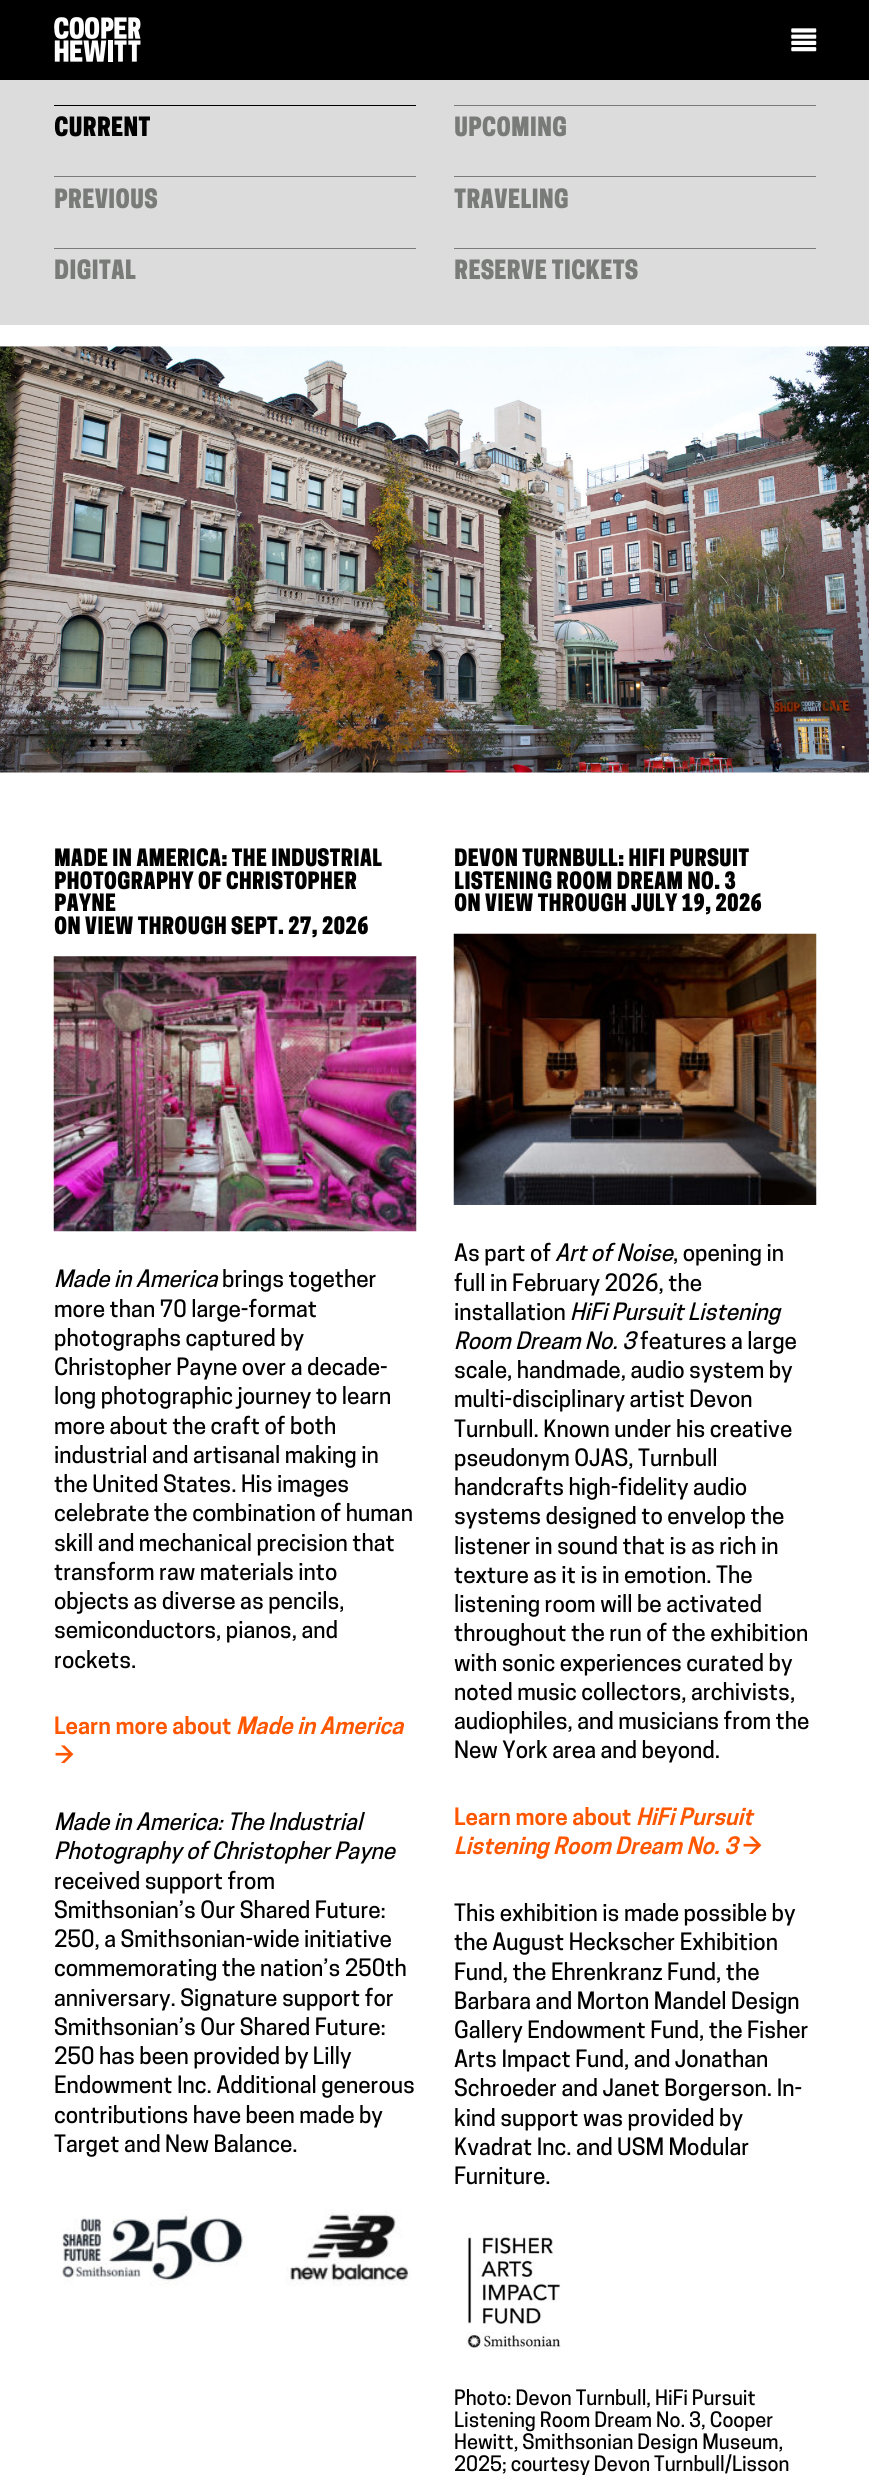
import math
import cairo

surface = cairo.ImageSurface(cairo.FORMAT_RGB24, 869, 2477)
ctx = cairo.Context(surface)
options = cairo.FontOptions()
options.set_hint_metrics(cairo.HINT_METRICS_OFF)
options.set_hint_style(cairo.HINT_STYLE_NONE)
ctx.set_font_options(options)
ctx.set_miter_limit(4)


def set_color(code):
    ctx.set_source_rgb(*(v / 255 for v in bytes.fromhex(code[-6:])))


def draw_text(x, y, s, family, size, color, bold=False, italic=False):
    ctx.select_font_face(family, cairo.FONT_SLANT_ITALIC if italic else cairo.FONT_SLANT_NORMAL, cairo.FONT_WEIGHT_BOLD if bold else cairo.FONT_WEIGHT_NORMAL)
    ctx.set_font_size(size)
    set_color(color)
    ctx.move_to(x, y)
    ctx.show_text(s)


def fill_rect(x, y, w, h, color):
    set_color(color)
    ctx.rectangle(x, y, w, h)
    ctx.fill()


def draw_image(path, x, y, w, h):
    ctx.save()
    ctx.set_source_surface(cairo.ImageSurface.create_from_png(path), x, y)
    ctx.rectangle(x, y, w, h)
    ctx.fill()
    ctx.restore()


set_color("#ffffff")
ctx.paint()
fill_rect(0, 0, 869, 80, "#000000")
draw_image("assets/img1.png", 54, 17, 87, 45)
draw_image("assets/img2.png", 791, 28, 26, 24)
fill_rect(0, 80, 869, 245, "#dcdcdc")
fill_rect(54, 105, 362, 1, "#000000")
draw_text(54, 136, "CURRENT", "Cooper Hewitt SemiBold", 25, "#000000")
fill_rect(454, 105, 362, 1, "#797b79")
draw_text(454, 136, "UPCOMING", "Cooper Hewitt SemiBold", 25, "#797b79")
fill_rect(54, 176, 362, 1, "#797b79")
draw_text(54, 208, "PREVIOUS", "Cooper Hewitt SemiBold", 25, "#797b79")
fill_rect(454, 176, 362, 1, "#797b79")
draw_text(454, 208, "TRAVELING", "Cooper Hewitt SemiBold", 25, "#797b79")
fill_rect(54, 248, 362, 1, "#797b79")
draw_text(54, 279, "DIGITAL", "Cooper Hewitt SemiBold", 25, "#797b79")
fill_rect(454, 248, 362, 1, "#797b79")
draw_text(454, 279, "RESERVE TICKETS", "Cooper Hewitt SemiBold", 25, "#797b79")
draw_image("assets/img3.png", 0, 346, 869, 427)
draw_text(54, 866, "MADE IN AMERICA: THE INDUSTRIAL", "Cooper Hewitt SemiBold", 22.5, "#000000")
draw_text(54, 889, "PHOTOGRAPHY OF CHRISTOPHER", "Cooper Hewitt SemiBold", 22.5, "#000000")
draw_text(54, 911, "PAYNE", "Cooper Hewitt SemiBold", 22.5, "#000000")
draw_text(54, 934, "ON VIEW THROUGH SEPT. 27, 2026", "Cooper Hewitt SemiBold", 22.5, "#000000")
draw_image("assets/img4.png", 53, 956, 364, 276)
draw_text(54, 1287, "Made in America", "Cooper Hewitt Medium", 22.5, "#000000", italic=True)
draw_text(222, 1287, "brings together", "Cooper Hewitt Medium", 22.5, "#000000")
draw_text(54, 1317, "more than 70 large-format", "Cooper Hewitt Medium", 22.5, "#000000")
draw_text(54, 1346, "photographs captured by", "Cooper Hewitt Medium", 22.5, "#000000")
draw_text(54, 1375, "Christopher Payne over a decade-", "Cooper Hewitt Medium", 22.5, "#000000")
draw_text(54, 1404, "long photographic journey to learn", "Cooper Hewitt Medium", 22.5, "#000000")
draw_text(54, 1434, "more about the craft of both", "Cooper Hewitt Medium", 22.5, "#000000")
draw_text(54, 1463, "industrial and artisanal making in", "Cooper Hewitt Medium", 22.5, "#000000")
draw_text(54, 1492, "the United States. His images", "Cooper Hewitt Medium", 22.5, "#000000")
draw_text(54, 1521, "celebrate the combination of human", "Cooper Hewitt Medium", 22.5, "#000000")
draw_text(54, 1551, "skill and mechanical precision that", "Cooper Hewitt Medium", 22.5, "#000000")
draw_text(54, 1580, "transform raw materials into", "Cooper Hewitt Medium", 22.5, "#000000")
draw_text(54, 1609, "objects as diverse as pencils,", "Cooper Hewitt Medium", 22.5, "#000000")
draw_text(54, 1638, "semiconductors, pianos, and", "Cooper Hewitt Medium", 22.5, "#000000")
draw_text(54, 1668, "rockets.", "Cooper Hewitt Medium", 22.5, "#000000")
draw_text(54, 1734, "Learn more about", "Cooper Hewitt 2 SemiBold", 22.5, "#ff5700")
draw_text(236, 1734, "Made in America", "Cooper Hewitt SemiBold", 22.5, "#ff5700", italic=True)
draw_text(54, 1763, "→", "Cooper Hewitt 2 SemiBold", 22.5, "#ff5700")
draw_text(54, 1830, "Made in America: The Industrial", "Cooper Hewitt Medium", 22.5, "#000000", italic=True)
draw_text(54, 1859, "Photography of Christopher Payne", "Cooper Hewitt Medium", 22.5, "#000000", italic=True)
draw_text(54, 1889, "received support from", "Cooper Hewitt Medium", 22.5, "#000000")
draw_text(54, 1918, "Smithsonian’s Our Shared Future:", "Cooper Hewitt Medium", 22.5, "#000000")
draw_text(54, 1947, "250, a Smithsonian-wide initiative", "Cooper Hewitt Medium", 22.5, "#000000")
draw_text(54, 1976, "commemorating the nation’s 250th", "Cooper Hewitt Medium", 22.5, "#000000")
draw_text(54, 2006, "anniversary. Signature support for", "Cooper Hewitt Medium", 22.5, "#000000")
draw_text(54, 2035, "Smithsonian’s Our Shared Future:", "Cooper Hewitt Medium", 22.5, "#000000")
draw_text(54, 2064, "250 has been provided by Lilly", "Cooper Hewitt Medium", 22.5, "#000000")
draw_text(54, 2093, "Endowment Inc. Additional generous", "Cooper Hewitt Medium", 22.5, "#000000")
draw_text(54, 2123, "contributions have been made by", "Cooper Hewitt Medium", 22.5, "#000000")
draw_text(54, 2152, "Target and New Balance.", "Cooper Hewitt Medium", 22.5, "#000000")
draw_image("assets/img5.png", 60, 2209, 351, 77)
draw_text(454, 866, "DEVON TURNBULL: HIFI PURSUIT", "Cooper Hewitt SemiBold", 22.5, "#000000")
draw_text(454, 889, "LISTENING ROOM DREAM NO. 3", "Cooper Hewitt SemiBold", 22.5, "#000000")
draw_text(454, 911, "ON VIEW THROUGH JULY 19, 2026", "Cooper Hewitt SemiBold", 22.5, "#000000")
draw_image("assets/img6.png", 453, 933, 364, 272)
draw_text(454, 1261, "As part of", "Cooper Hewitt Medium", 22.5, "#000000")
draw_text(555, 1261, "Art of Noise", "Cooper Hewitt Medium", 22.5, "#000000", italic=True)
draw_text(673, 1261, ", opening in", "Cooper Hewitt Medium", 22.5, "#000000")
draw_text(454, 1291, "full in February 2026, the", "Cooper Hewitt Medium", 22.5, "#000000")
draw_text(454, 1320, "installation", "Cooper Hewitt Medium", 22.5, "#000000")
draw_text(570, 1320, "HiFi Pursuit Listening", "Cooper Hewitt Medium", 22.5, "#000000", italic=True)
draw_text(454, 1349, "Room Dream No. 3", "Cooper Hewitt Medium", 22.5, "#000000", italic=True)
draw_text(640, 1349, "features a large", "Cooper Hewitt Medium", 22.5, "#000000")
draw_text(454, 1378, "scale, handmade, audio system by", "Cooper Hewitt Medium", 22.5, "#000000")
draw_text(454, 1407, "multi-disciplinary artist Devon", "Cooper Hewitt Medium", 22.5, "#000000")
draw_text(454, 1437, "Turnbull. Known under his creative", "Cooper Hewitt Medium", 22.5, "#000000")
draw_text(454, 1466, "pseudonym OJAS, Turnbull", "Cooper Hewitt Medium", 22.5, "#000000")
draw_text(454, 1495, "handcrafts high-fidelity audio", "Cooper Hewitt Medium", 22.5, "#000000")
draw_text(454, 1524, "systems designed to envelop the", "Cooper Hewitt Medium", 22.5, "#000000")
draw_text(454, 1554, "listener in sound that is as rich in", "Cooper Hewitt Medium", 22.5, "#000000")
draw_text(454, 1583, "texture as it is in emotion. The", "Cooper Hewitt Medium", 22.5, "#000000")
draw_text(454, 1612, "listening room will be activated", "Cooper Hewitt Medium", 22.5, "#000000")
draw_text(454, 1641, "throughout the run of the exhibition", "Cooper Hewitt Medium", 22.5, "#000000")
draw_text(454, 1671, "with sonic experiences curated by", "Cooper Hewitt Medium", 22.5, "#000000")
draw_text(454, 1700, "noted music collectors, archivists,", "Cooper Hewitt Medium", 22.5, "#000000")
draw_text(454, 1729, "audiophiles, and musicians from the", "Cooper Hewitt Medium", 22.5, "#000000")
draw_text(454, 1758, "New York area and beyond.", "Cooper Hewitt Medium", 22.5, "#000000")
draw_text(454, 1825, "Learn more about", "Cooper Hewitt 2 SemiBold", 22.5, "#ff5700")
draw_text(636, 1825, "HiFi Pursuit", "Cooper Hewitt SemiBold", 22.5, "#ff5700", italic=True)
draw_text(454, 1854, "Listening Room Dream No. 3", "Cooper Hewitt SemiBold", 22.5, "#ff5700", italic=True)
draw_text(742, 1854, "→", "Cooper Hewitt 2 SemiBold", 22.5, "#ff5700")
draw_text(454, 1921, "This exhibition is made possible by", "Cooper Hewitt Medium", 22.5, "#000000")
draw_text(454, 1950, "the August Heckscher Exhibition", "Cooper Hewitt Medium", 22.5, "#000000")
draw_text(454, 1980, "Fund, the Ehrenkranz Fund, the", "Cooper Hewitt Medium", 22.5, "#000000")
draw_text(454, 2009, "Barbara and Morton Mandel Design", "Cooper Hewitt Medium", 22.5, "#000000")
draw_text(454, 2038, "Gallery Endowment Fund, the Fisher", "Cooper Hewitt Medium", 22.5, "#000000")
draw_text(454, 2067, "Arts Impact Fund, and Jonathan", "Cooper Hewitt Medium", 22.5, "#000000")
draw_text(454, 2096, "Schroeder and Janet Borgerson. In-", "Cooper Hewitt Medium", 22.5, "#000000")
draw_text(454, 2126, "kind support was provided by", "Cooper Hewitt Medium", 22.5, "#000000")
draw_text(454, 2155, "Kvadrat Inc. and USM Modular", "Cooper Hewitt Medium", 22.5, "#000000")
draw_text(454, 2184, "Furniture.", "Cooper Hewitt Medium", 22.5, "#000000")
draw_image("assets/img7.png", 466, 2233, 95, 117)
draw_text(454, 2405, "Photo: Devon Turnbull, HiFi Pursuit", "Cooper Hewitt Medium", 20, "#000000")
draw_text(454, 2427, "Listening Room Dream No. 3, Cooper", "Cooper Hewitt Medium", 20, "#000000")
draw_text(454, 2449, "Hewitt, Smithsonian Design Museum,", "Cooper Hewitt Medium", 20, "#000000")
draw_text(454, 2471, "2025; courtesy Devon Turnbull/Lisson", "Cooper Hewitt Medium", 20, "#000000")
surface.write_to_png("output.png")
